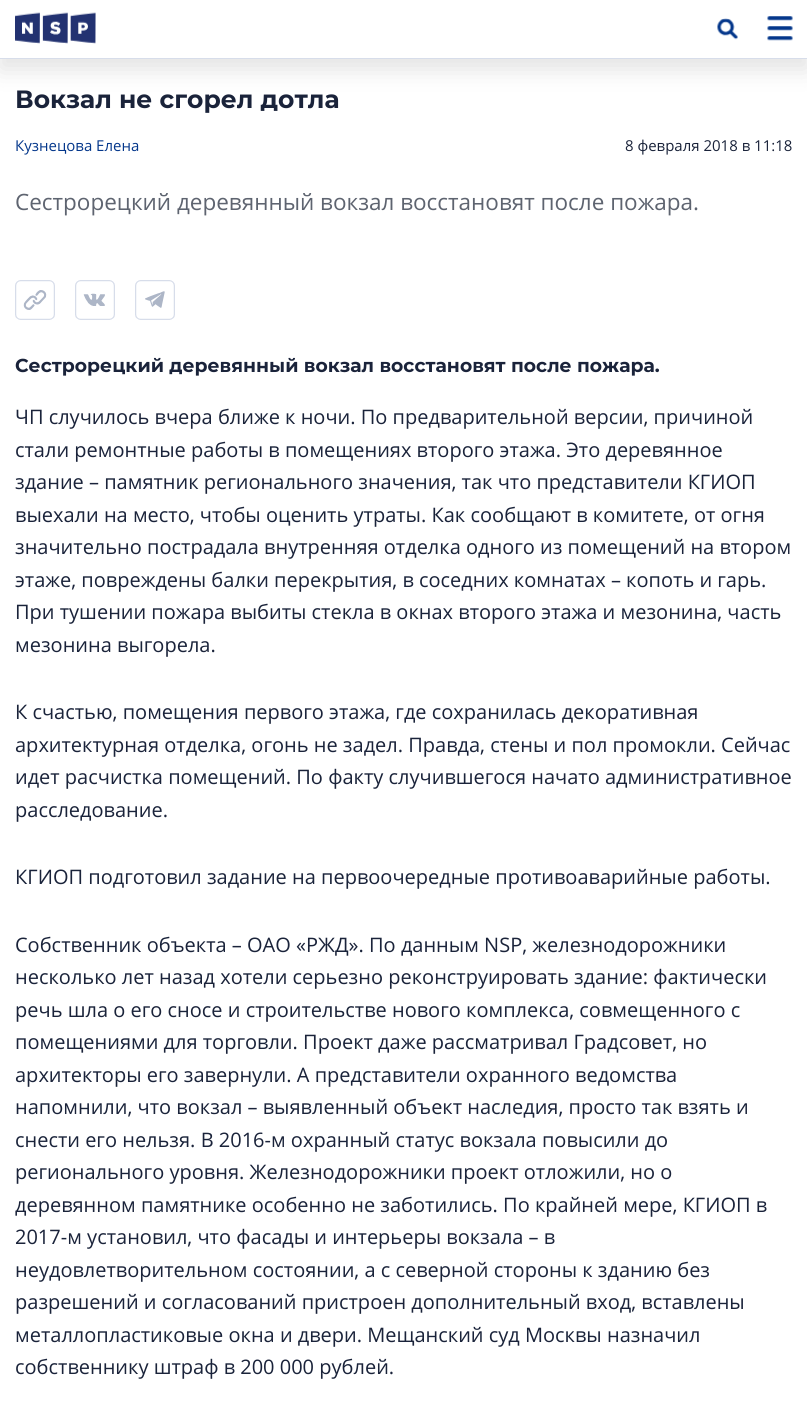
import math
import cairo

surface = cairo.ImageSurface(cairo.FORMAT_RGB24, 807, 1415)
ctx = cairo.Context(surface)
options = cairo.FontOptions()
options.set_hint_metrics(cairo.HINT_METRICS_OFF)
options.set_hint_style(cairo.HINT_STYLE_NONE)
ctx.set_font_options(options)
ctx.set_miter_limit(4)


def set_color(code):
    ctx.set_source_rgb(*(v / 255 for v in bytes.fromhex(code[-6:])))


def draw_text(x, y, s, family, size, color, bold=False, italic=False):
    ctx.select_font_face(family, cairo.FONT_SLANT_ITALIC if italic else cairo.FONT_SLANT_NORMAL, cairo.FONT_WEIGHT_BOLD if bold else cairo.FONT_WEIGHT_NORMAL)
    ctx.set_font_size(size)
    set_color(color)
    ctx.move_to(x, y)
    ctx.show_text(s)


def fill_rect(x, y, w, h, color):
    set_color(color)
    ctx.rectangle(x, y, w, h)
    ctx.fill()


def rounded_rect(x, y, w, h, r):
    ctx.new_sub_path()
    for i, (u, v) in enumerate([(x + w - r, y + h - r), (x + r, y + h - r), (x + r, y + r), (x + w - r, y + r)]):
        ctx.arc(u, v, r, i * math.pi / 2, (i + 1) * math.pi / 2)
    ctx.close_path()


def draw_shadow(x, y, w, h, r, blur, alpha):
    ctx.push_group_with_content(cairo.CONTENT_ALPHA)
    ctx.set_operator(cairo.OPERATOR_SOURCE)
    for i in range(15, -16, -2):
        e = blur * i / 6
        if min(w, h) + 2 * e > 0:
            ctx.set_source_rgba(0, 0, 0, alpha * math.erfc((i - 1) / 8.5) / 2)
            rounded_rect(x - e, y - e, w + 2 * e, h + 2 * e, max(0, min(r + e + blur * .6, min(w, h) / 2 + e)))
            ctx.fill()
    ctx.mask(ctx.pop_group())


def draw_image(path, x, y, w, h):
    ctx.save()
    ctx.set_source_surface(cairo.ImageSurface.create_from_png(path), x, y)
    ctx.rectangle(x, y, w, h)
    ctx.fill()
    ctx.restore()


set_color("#ffffff")
ctx.paint()
set_color("#000000")
draw_shadow(0, 10, 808, 59, 0, 12.5, 0.12)
fill_rect(0, 0, 807, 58, "#ffffff")
fill_rect(0, 58, 807, 1, "#d7ddea")
draw_image("assets/img1.png", 15, 12, 81, 32)
draw_image("assets/img2.png", 717, 18, 21, 22)
draw_image("assets/img3.png", 767, 16, 26, 25)
draw_text(15, 108, "Вокзал не сгорел дотла", "Montserrat", 25, "#1a233a", bold=True)
draw_text(15, 151, "Кузнецова Елена", "Open Sans", 15, "#04378b")
draw_text(625, 151, "8 февраля 2018 в 11:18", "Open Sans", 15, "#1a233a")
draw_text(15, 210, "Сестрорецкий деревянный вокзал восстановят после пожара.", "Open Sans", 22.5, "#5e6470")
draw_image("assets/img4.png", 15, 280, 40, 40)
draw_image("assets/img5.png", 75, 280, 40, 40)
draw_image("assets/img6.png", 135, 280, 40, 40)
draw_text(15, 372, "Сестрорецкий деревянный вокзал восстановят после пожара.", "Montserrat", 18.75, "#1a233a", bold=True)
draw_text(15, 424, "ЧП случилось вчера ближе к ночи. По предварительной версии, причиной", "Open Sans", 20, "#1a233a")
draw_text(15, 457, "стали ремонтные работы в помещениях второго этажа. Это деревянное", "Open Sans", 20, "#1a233a")
draw_text(15, 489, "здание – памятник регионального значения, так что представители КГИОП", "Open Sans", 20, "#1a233a")
draw_text(15, 522, "выехали на место, чтобы оценить утраты. Как сообщают в комитете, от огня", "Open Sans", 20, "#1a233a")
draw_text(15, 554, "значительно пострадала внутренняя отделка одного из помещений на втором", "Open Sans", 20, "#1a233a")
draw_text(15, 587, "этаже, повреждены балки перекрытия, в соседних комнатах – копоть и гарь.", "Open Sans", 20, "#1a233a")
draw_text(15, 619, "При тушении пожара выбиты стекла в окнах второго этажа и мезонина, часть", "Open Sans", 20, "#1a233a")
draw_text(15, 652, "мезонина выгорела.", "Open Sans", 20, "#1a233a")
draw_text(15, 719, "К счастью, помещения первого этажа, где сохранилась декоративная", "Open Sans", 20, "#1a233a")
draw_text(15, 752, "архитектурная отделка, огонь не задел. Правда, стены и пол промокли. Сейчас", "Open Sans", 20, "#1a233a")
draw_text(15, 784, "идет расчистка помещений. По факту случившегося начато административное", "Open Sans", 20, "#1a233a")
draw_text(15, 817, "расследование.", "Open Sans", 20, "#1a233a")
draw_text(15, 884, "КГИОП подготовил задание на первоочередные противоаварийные работы.", "Open Sans", 20, "#1a233a")
draw_text(15, 952, "Собственник объекта – ОАО «РЖД». По данным NSP, железнодорожники", "Open Sans", 20, "#1a233a")
draw_text(15, 984, "несколько лет назад хотели серьезно реконструировать здание: фактически", "Open Sans", 20, "#1a233a")
draw_text(15, 1017, "речь шла о его сносе и строительстве нового комплекса, совмещенного с", "Open Sans", 20, "#1a233a")
draw_text(15, 1049, "помещениями для торговли. Проект даже рассматривал Градсовет, но", "Open Sans", 20, "#1a233a")
draw_text(15, 1082, "архитекторы его завернули. А представители охранного ведомства", "Open Sans", 20, "#1a233a")
draw_text(15, 1114, "напомнили, что вокзал – выявленный объект наследия, просто так взять и", "Open Sans", 20, "#1a233a")
draw_text(15, 1147, "снести его нельзя. В 2016-м охранный статус вокзала повысили до", "Open Sans", 20, "#1a233a")
draw_text(15, 1179, "регионального уровня. Железнодорожники проект отложили, но о", "Open Sans", 20, "#1a233a")
draw_text(15, 1212, "деревянном памятнике особенно не заботились. По крайней мере, КГИОП в", "Open Sans", 20, "#1a233a")
draw_text(15, 1244, "2017-м установил, что фасады и интерьеры вокзала – в", "Open Sans", 20, "#1a233a")
draw_text(15, 1277, "неудовлетворительном состоянии, а с северной стороны к зданию без", "Open Sans", 20, "#1a233a")
draw_text(15, 1309, "разрешений и согласований пристроен дополнительный вход, вставлены", "Open Sans", 20, "#1a233a")
draw_text(15, 1342, "металлопластиковые окна и двери. Мещанский суд Москвы назначил", "Open Sans", 20, "#1a233a")
draw_text(15, 1374, "собственнику штраф в 200 000 рублей.", "Open Sans", 20, "#1a233a")
surface.write_to_png("output.png")
